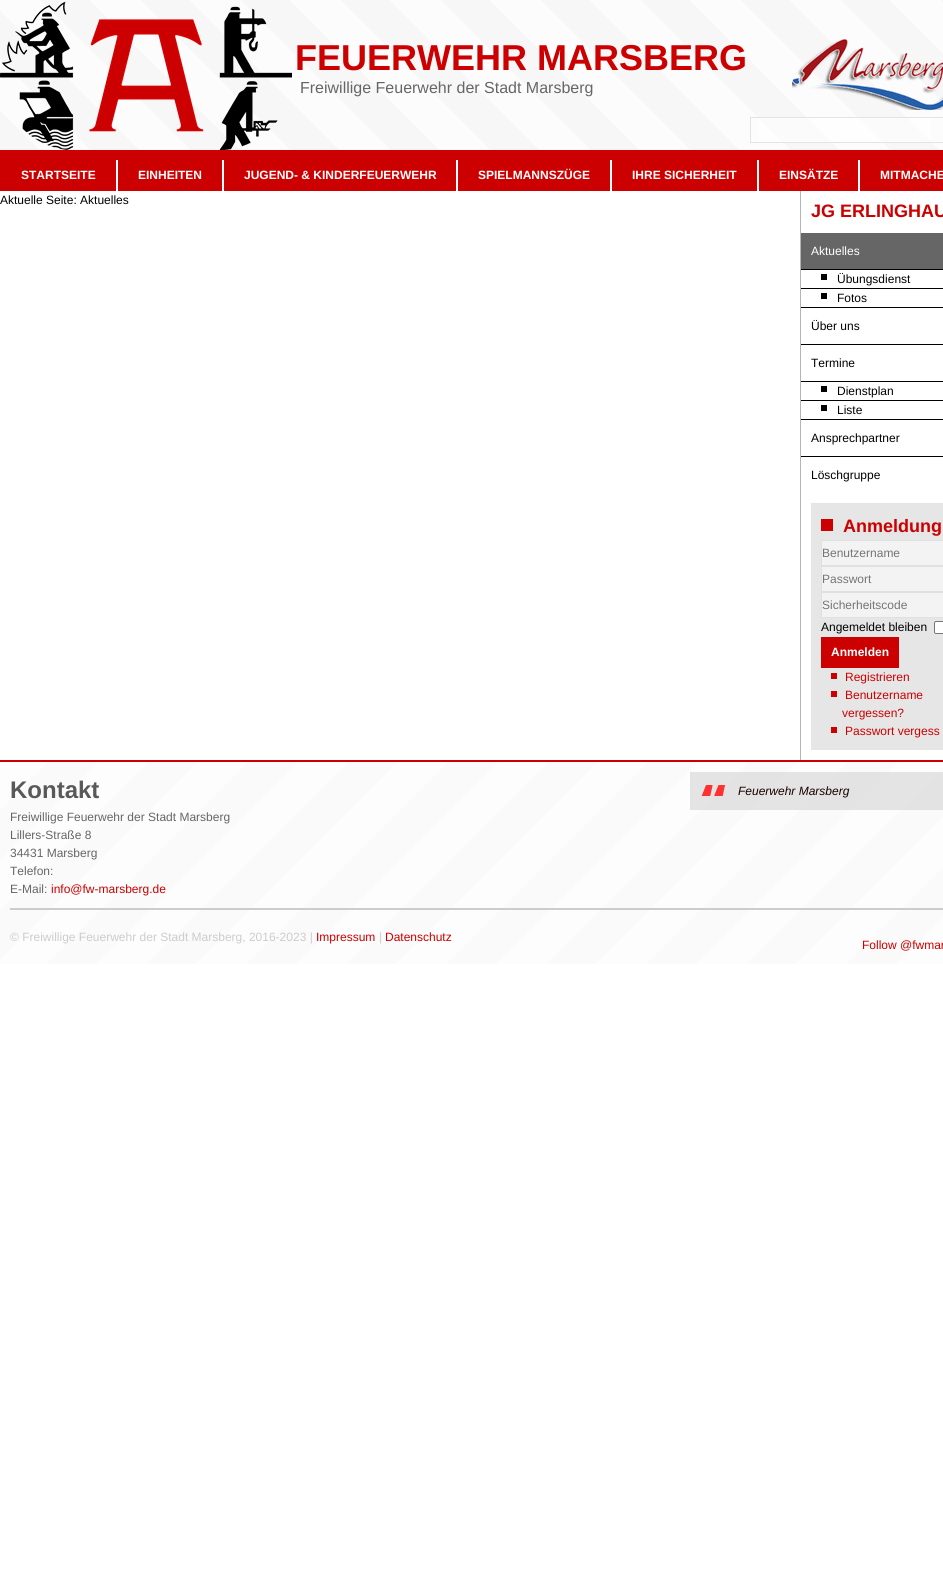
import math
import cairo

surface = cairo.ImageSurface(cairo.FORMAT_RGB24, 943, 1586)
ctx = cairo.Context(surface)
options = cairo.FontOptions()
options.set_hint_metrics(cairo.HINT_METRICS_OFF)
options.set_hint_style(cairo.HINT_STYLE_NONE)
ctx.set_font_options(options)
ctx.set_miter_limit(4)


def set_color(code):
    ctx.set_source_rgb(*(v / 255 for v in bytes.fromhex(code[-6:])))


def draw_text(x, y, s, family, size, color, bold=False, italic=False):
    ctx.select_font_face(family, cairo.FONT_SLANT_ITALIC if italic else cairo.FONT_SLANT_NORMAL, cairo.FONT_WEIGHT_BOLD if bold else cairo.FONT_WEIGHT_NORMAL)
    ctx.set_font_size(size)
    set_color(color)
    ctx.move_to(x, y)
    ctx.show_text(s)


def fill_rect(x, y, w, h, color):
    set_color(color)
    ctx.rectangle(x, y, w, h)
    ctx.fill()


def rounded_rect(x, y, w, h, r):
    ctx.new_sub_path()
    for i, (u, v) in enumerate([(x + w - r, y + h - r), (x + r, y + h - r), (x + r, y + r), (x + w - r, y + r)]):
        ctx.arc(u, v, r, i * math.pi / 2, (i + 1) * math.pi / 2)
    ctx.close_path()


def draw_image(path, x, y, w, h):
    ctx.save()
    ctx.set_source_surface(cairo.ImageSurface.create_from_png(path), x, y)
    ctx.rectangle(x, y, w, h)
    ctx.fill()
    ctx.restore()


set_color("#ffffff")
ctx.paint()
draw_image("assets/img1.png", 0, 0, 943, 150)
draw_image("assets/img2.png", 0, 1, 292, 149)
draw_text(295, 70, "FEUERWEHR MARSBERG", "Liberation Sans", 36, "#cc0000", bold=True)
draw_image("assets/img3.png", 792, 39, 151, 71)
draw_text(300, 93, "Freiwillige Feuerwehr der Stadt Marsberg", "Liberation Sans", 16, "#666666")
ctx.set_source_rgba(1, 1, 1, 0.5)
ctx.rectangle(759, 118, 172, 24)
ctx.fill()
ctx.rectangle(750.5, 117.5, 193, 25)
set_color("#e4e4e4")
ctx.set_line_width(1)
ctx.stroke()
fill_rect(0, 150, 943, 41, "#cc0000")
draw_text(21, 179, "STARTSEITE", "Liberation Sans", 12, "#ffffff", bold=True)
fill_rect(116, 160, 2, 31, "#ffffff")
draw_text(138, 179, "EINHEITEN", "Liberation Sans", 12, "#ffffff", bold=True)
fill_rect(222, 160, 2, 31, "#ffffff")
draw_text(244, 179, "JUGEND- & KINDERFEUERWEHR", "Liberation Sans", 12, "#ffffff", bold=True)
fill_rect(456, 160, 2, 31, "#ffffff")
draw_text(478, 179, "SPIELMANNSZÜGE", "Liberation Sans", 12, "#ffffff", bold=True)
fill_rect(610, 160, 2, 31, "#ffffff")
draw_text(632, 179, "IHRE SICHERHEIT", "Liberation Sans", 12, "#ffffff", bold=True)
fill_rect(757, 160, 2, 31, "#ffffff")
draw_text(779, 179, "EINSÄTZE", "Liberation Sans", 12, "#ffffff", bold=True)
fill_rect(858, 160, 2, 31, "#ffffff")
draw_text(880, 179, "MITMACHE", "Liberation Sans", 12, "#ffffff", bold=True)
draw_text(0, 204, "Aktuelle Seite: Aktuelles", "Liberation Sans", 12, "#000000")
fill_rect(800, 191, 1, 569, "#b5b5b5")
draw_text(811, 217, "JG ERLINGHAU", "Liberation Sans", 18, "#cc0000", bold=True)
fill_rect(801, 233, 142, 36, "#666666")
draw_text(811, 255, "Aktuelles", "Liberation Sans", 12, "#ffffff")
fill_rect(801, 269, 142, 1, "#000000")
fill_rect(821, 274, 6, 6, "#000000")
draw_text(837, 283, "Übungsdienst", "Liberation Sans", 12, "#000000")
fill_rect(801, 288, 142, 1, "#000000")
fill_rect(821, 293, 6, 6, "#000000")
draw_text(837, 302, "Fotos", "Liberation Sans", 12, "#000000")
fill_rect(801, 307, 142, 1, "#000000")
draw_text(811, 330, "Über uns", "Liberation Sans", 12, "#000000")
fill_rect(801, 344, 142, 1, "#000000")
draw_text(811, 367, "Termine", "Liberation Sans", 12, "#000000")
fill_rect(801, 381, 142, 1, "#000000")
fill_rect(821, 386, 6, 6, "#000000")
draw_text(837, 395, "Dienstplan", "Liberation Sans", 12, "#000000")
fill_rect(801, 400, 142, 1, "#000000")
fill_rect(821, 405, 6, 6, "#000000")
draw_text(837, 414, "Liste", "Liberation Sans", 12, "#000000")
fill_rect(801, 419, 142, 1, "#000000")
draw_text(811, 442, "Ansprechpartner", "Liberation Sans", 12, "#000000")
fill_rect(801, 456, 142, 1, "#000000")
draw_text(811, 479, "Löschgruppe", "Liberation Sans", 12, "#000000")
fill_rect(811, 503, 132, 247, "#e6e6e6")
fill_rect(821, 519, 12, 12, "#cc0000")
draw_text(843, 532, "Anmeldung", "Liberation Sans", 18, "#cc0000", bold=True)
set_color("#f3f3f3")
ctx.rectangle(821.5, 540.5, 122, 25)
ctx.fill_preserve()
set_color("#e0e0e0")
ctx.stroke()
draw_text(822, 557, "Benutzername", "Liberation Sans", 12, "#757575")
set_color("#f3f3f3")
ctx.rectangle(821.5, 566.5, 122, 25)
ctx.fill_preserve()
set_color("#e0e0e0")
ctx.stroke()
draw_text(822, 583, "Passwort", "Liberation Sans", 12, "#757575")
set_color("#f3f3f3")
ctx.rectangle(821.5, 592.5, 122, 25)
ctx.fill_preserve()
set_color("#e0e0e0")
ctx.stroke()
draw_text(822, 609, "Sicherheitscode", "Liberation Sans", 12, "#757575")
draw_text(821, 631, "Angemeldet bleiben", "Liberation Sans", 12, "#000000")
set_color("#ffffff")
rounded_rect(934.5, 621.5, 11, 12, 1.5)
ctx.fill_preserve()
set_color("#767676")
ctx.stroke()
fill_rect(821, 637, 78, 31, "#cc0000")
draw_text(831, 656, "Anmelden", "Liberation Sans", 12, "#ffffff", bold=True)
fill_rect(831, 673, 6, 6, "#cc0000")
draw_text(845, 681, "Registrieren", "Liberation Sans", 12, "#cc0000")
fill_rect(831, 691, 6, 6, "#cc0000")
draw_text(845, 699, "Benutzername", "Liberation Sans", 12, "#cc0000")
draw_text(842, 717, "vergessen?", "Liberation Sans", 12, "#cc0000")
fill_rect(831, 727, 6, 6, "#cc0000")
draw_text(845, 735, "Passwort vergess", "Liberation Sans", 12, "#cc0000")
draw_image("assets/img4.png", 0, 762, 943, 202)
fill_rect(0, 760, 943, 2, "#cc0000")
draw_text(10, 798, "Kontakt", "Liberation Sans", 24, "#595959", bold=True)
draw_text(10, 821, "Freiwillige Feuerwehr der Stadt Marsberg", "Liberation Sans", 12, "#666666")
draw_text(10, 839, "Lillers-Straße 8", "Liberation Sans", 12, "#666666")
draw_text(10, 857, "34431 Marsberg", "Liberation Sans", 12, "#666666")
draw_text(10, 875, "Telefon:", "Liberation Sans", 12, "#666666")
draw_text(10, 893, "E-Mail:", "Liberation Sans", 12, "#666666")
draw_text(51, 893, "info@fw-marsberg.de", "Liberation Sans", 12, "#cc0000")
ctx.set_source_rgba(0.8, 0.8, 0.8, 0.5)
ctx.rectangle(690, 772, 253, 38)
ctx.fill()
draw_image("assets/img5.png", 701, 785, 24, 11)
draw_text(738, 795, "Feuerwehr Marsberg", "Liberation Sans", 12, "#1a0000", italic=True)
fill_rect(10, 908, 933, 2, "#cccccc")
draw_text(10, 941, "© Freiwillige Feuerwehr der Stadt Marsberg, 2016-2023 |", "Liberation Sans", 12, "#cccccc")
draw_text(316, 941, "Impressum", "Liberation Sans", 12, "#cc0000")
draw_text(379, 941, "|", "Liberation Sans", 12, "#cccccc")
draw_text(385, 941, "Datenschutz", "Liberation Sans", 12, "#cc0000")
draw_text(862, 949, "Follow @fwmar", "Liberation Sans", 12, "#cc0000")
surface.write_to_png("output.png")
